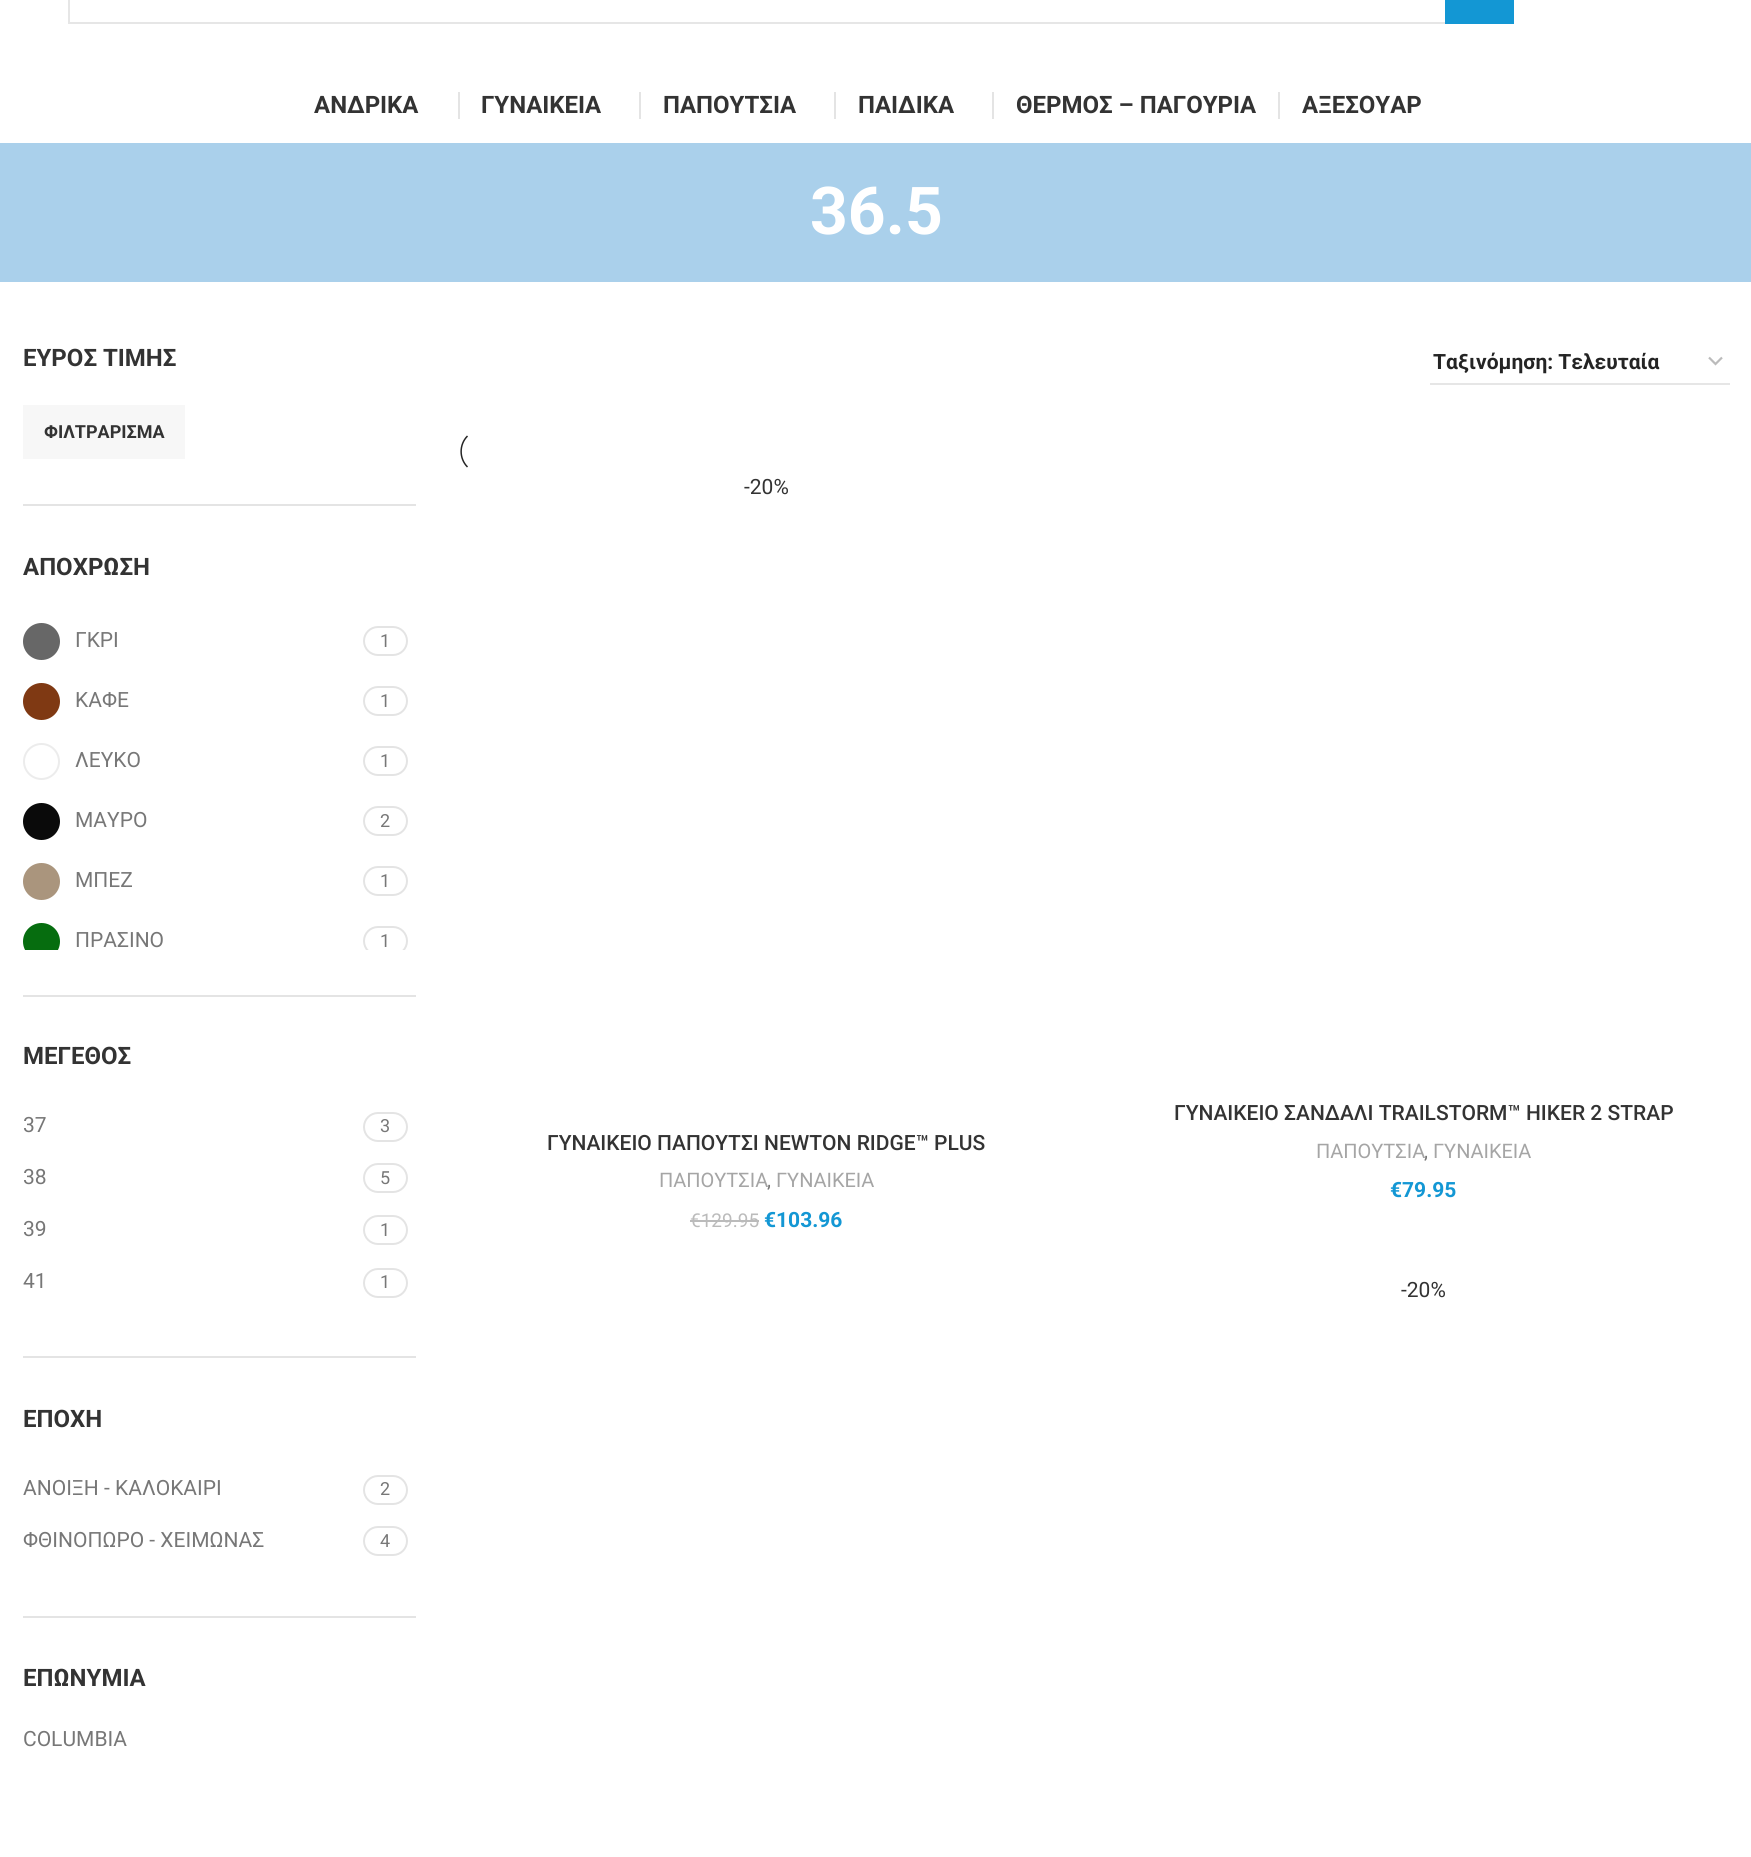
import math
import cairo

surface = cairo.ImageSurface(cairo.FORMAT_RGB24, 1751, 1857)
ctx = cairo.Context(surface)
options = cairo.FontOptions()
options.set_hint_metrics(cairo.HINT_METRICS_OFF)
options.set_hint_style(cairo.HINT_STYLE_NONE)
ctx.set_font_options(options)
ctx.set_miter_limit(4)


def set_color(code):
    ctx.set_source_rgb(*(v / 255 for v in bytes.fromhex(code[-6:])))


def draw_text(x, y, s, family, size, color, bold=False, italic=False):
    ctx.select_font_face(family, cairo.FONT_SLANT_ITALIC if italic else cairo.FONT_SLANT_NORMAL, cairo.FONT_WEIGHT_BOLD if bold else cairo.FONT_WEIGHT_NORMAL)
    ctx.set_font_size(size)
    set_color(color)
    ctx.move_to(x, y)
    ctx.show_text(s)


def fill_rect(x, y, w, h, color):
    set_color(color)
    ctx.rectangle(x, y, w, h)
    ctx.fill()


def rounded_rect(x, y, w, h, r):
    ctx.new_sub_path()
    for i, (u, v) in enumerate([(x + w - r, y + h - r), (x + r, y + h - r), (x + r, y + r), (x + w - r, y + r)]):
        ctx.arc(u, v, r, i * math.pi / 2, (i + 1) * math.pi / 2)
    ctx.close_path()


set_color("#ffffff")
ctx.paint()
ctx.rectangle(69, -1, 1444, 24)
set_color("#e6e6e6")
ctx.stroke()
fill_rect(1445, 0, 69, 24, "#1397d4")
draw_text(314, 113, "ΑΝΔΡΙΚΑ", "Roboto", 24, "#333333", bold=True)
fill_rect(458, 92, 2, 27, "#e4e4e4")
draw_text(481, 113, "ΓΥΝΑΙΚΕΙΑ", "Roboto", 24, "#333333", bold=True)
fill_rect(639, 92, 2, 27, "#e4e4e4")
draw_text(663, 113, "ΠΑΠΟΥΤΣΙΑ", "Roboto", 24, "#333333", bold=True)
fill_rect(834, 92, 2, 27, "#e4e4e4")
draw_text(858, 113, "ΠΑΙΔΙΚΑ", "Roboto", 24, "#333333", bold=True)
fill_rect(992, 92, 2, 27, "#e4e4e4")
draw_text(1016, 113, "ΘΕΡΜΟΣ – ΠΑΓΟΥΡΙΑ", "Roboto", 24, "#333333", bold=True)
fill_rect(1278, 92, 2, 27, "#e4e4e4")
draw_text(1302, 113, "ΑΞΕΣΟΥΑΡ", "Roboto", 24, "#333333", bold=True)
fill_rect(0, 143, 1751, 139, "#aad0eb")
draw_text(810, 234, "36.5", "Roboto", 66, "#ffffff", bold=True)
fill_rect(23, 504, 393, 2, "#e4e4e4")
draw_text(23, 366, "ΕΥΡΟΣ ΤΙΜΗΣ", "Roboto", 24, "#333333", bold=True)
fill_rect(23, 405, 162, 54, "#f7f7f7")
draw_text(44, 438, "ΦΙΛΤΡΑΡΙΣΜΑ", "Roboto", 18, "#333333", bold=True)
fill_rect(23, 995, 393, 2, "#e4e4e4")
draw_text(23, 575, "ΑΠΟΧΡΩΣΗ", "Roboto", 24, "#333333", bold=True)
set_color("#676767")
ctx.new_path()
ctx.arc(41.5, 641.5, 18.5, 0, 2 * math.pi)
ctx.fill()
draw_text(75, 647, "ΓΚΡΙ", "Roboto", 21, "#777777")
rounded_rect(364, 627, 43, 28, 14)
set_color("#e4e4e4")
ctx.stroke()
draw_text(380, 647, "1", "Roboto", 18, "#777777")
set_color("#7f3913")
ctx.new_path()
ctx.arc(41.5, 701.5, 18.5, 0, 2 * math.pi)
ctx.fill()
draw_text(75, 707, "ΚΑΦΕ", "Roboto", 21, "#777777")
rounded_rect(364, 687, 43, 28, 14)
set_color("#e4e4e4")
ctx.stroke()
draw_text(380, 707, "1", "Roboto", 18, "#777777")
ctx.new_path()
ctx.arc(41.5, 761.5, 17.5, 0, 2 * math.pi)
set_color("#ececec")
ctx.stroke()
draw_text(75, 767, "ΛΕΥΚΟ", "Roboto", 21, "#777777")
rounded_rect(364, 747, 43, 28, 14)
set_color("#e4e4e4")
ctx.stroke()
draw_text(380, 767, "1", "Roboto", 18, "#777777")
set_color("#0a0a0a")
ctx.new_path()
ctx.arc(41.5, 821.5, 18.5, 0, 2 * math.pi)
ctx.fill()
draw_text(75, 827, "ΜΑΥΡΟ", "Roboto", 21, "#777777")
rounded_rect(364, 807, 43, 28, 14)
set_color("#e4e4e4")
ctx.stroke()
draw_text(380, 827, "2", "Roboto", 18, "#777777")
set_color("#aa957d")
ctx.new_path()
ctx.arc(41.5, 881.5, 18.5, 0, 2 * math.pi)
ctx.fill()
draw_text(75, 887, "ΜΠΕΖ", "Roboto", 21, "#777777")
rounded_rect(364, 867, 43, 28, 14)
set_color("#e4e4e4")
ctx.stroke()
draw_text(380, 887, "1", "Roboto", 18, "#777777")
ctx.save()
ctx.rectangle(23, 615, 393, 335)
ctx.clip()
set_color("#066d0f")
ctx.arc(41.5, 941.5, 18.5, 0, 2 * math.pi)
ctx.fill()
ctx.restore()
draw_text(75, 947, "ΠΡΑΣΙΝΟ", "Roboto", 21, "#777777")
ctx.save()
ctx.rectangle(23, 615, 393, 335)
ctx.clip()
rounded_rect(364, 927, 43, 28, 14)
set_color("#e4e4e4")
ctx.stroke()
ctx.restore()
draw_text(380, 947, "1", "Roboto", 18, "#777777")
fill_rect(23, 1356, 393, 2, "#e4e4e4")
draw_text(23, 1064, "ΜΕΓΕΘΟΣ", "Roboto", 24, "#333333", bold=True)
draw_text(23, 1132, "37", "Roboto", 21, "#777777")
rounded_rect(364, 1113, 43, 28, 14)
set_color("#e4e4e4")
ctx.stroke()
draw_text(380, 1132, "3", "Roboto", 18, "#777777")
draw_text(23, 1184, "38", "Roboto", 21, "#777777")
rounded_rect(364, 1164, 43, 28, 14)
set_color("#e4e4e4")
ctx.stroke()
draw_text(380, 1184, "5", "Roboto", 18, "#777777")
draw_text(23, 1236, "39", "Roboto", 21, "#777777")
rounded_rect(364, 1216, 43, 28, 14)
set_color("#e4e4e4")
ctx.stroke()
draw_text(380, 1236, "1", "Roboto", 18, "#777777")
draw_text(23, 1288, "41", "Roboto", 21, "#777777")
rounded_rect(364, 1269, 43, 28, 14)
set_color("#e4e4e4")
ctx.stroke()
draw_text(380, 1288, "1", "Roboto", 18, "#777777")
fill_rect(23, 1616, 393, 2, "#e4e4e4")
draw_text(23, 1427, "ΕΠΟΧΗ", "Roboto", 24, "#333333", bold=True)
draw_text(23, 1495, "ΑΝΟΙΞΗ - ΚΑΛΟΚΑΙΡΙ", "Roboto", 21, "#777777")
rounded_rect(364, 1476, 43, 28, 14)
set_color("#e4e4e4")
ctx.stroke()
draw_text(380, 1495, "2", "Roboto", 18, "#777777")
draw_text(23, 1547, "ΦΘΙΝΟΠΩΡΟ - ΧΕΙΜΩΝΑΣ", "Roboto", 21, "#777777")
rounded_rect(364, 1527, 43, 28, 14)
set_color("#e4e4e4")
ctx.stroke()
draw_text(380, 1547, "4", "Roboto", 18, "#777777")
draw_text(23, 1686, "ΕΠΩΝΥΜΙΑ", "Roboto", 24, "#333333", bold=True)
draw_text(23, 1746, "COLUMBIA", "Roboto", 21, "#777777")
ctx.new_path()
ctx.move_to(1709, 357.5)
ctx.line_to(1715.5, 364)
ctx.line_to(1722, 357.5)
set_color("#bbbbbb")
ctx.set_line_width(2.2)
ctx.stroke()
fill_rect(1430, 383, 300, 2, "#e6e6e6")
draw_text(1433, 369, "Ταξινόμηση: Τελευταία", "Roboto", 21, "#242424", bold=True)
ctx.new_path()
ctx.move_to(467.5, 467)
ctx.curve_to(459, 458.5, 459, 444.5, 467.5, 436)
ctx.set_line_width(1.5)
ctx.stroke()
draw_text(744, 494, "-20%", "Roboto", 21, "#333333")
draw_text(547, 1150, "ΓΥΝΑΙΚΕΙΟ ΠΑΠΟΥΤΣΙ NEWTON RIDGE™ PLUS", "Roboto Medium", 21, "#333333")
draw_text(659, 1187, "ΠΑΠΟΥΤΣΙΑ", "Roboto", 20, "#a5a5a5")
draw_text(767, 1187, ",", "Roboto", 20, "#777777")
draw_text(776, 1187, "ΓΥΝΑΙΚΕΙΑ", "Roboto", 20, "#a5a5a5")
draw_text(690, 1227, "€129.95", "Roboto", 19, "#bbbbbb")
fill_rect(690, 1220, 69, 2, "#bbbbbb")
draw_text(764, 1227, "€103.96", "Roboto", 21, "#1397d4", bold=True)
draw_text(1174, 1120, "ΓΥΝΑΙΚΕΙΟ ΣΑΝΔΑΛΙ TRAILSTORM™ HIKER 2 STRAP", "Roboto Medium", 21, "#333333")
draw_text(1316, 1158, "ΠΑΠΟΥΤΣΙΑ", "Roboto", 20, "#a5a5a5")
draw_text(1424, 1158, ",", "Roboto", 20, "#777777")
draw_text(1433, 1158, "ΓΥΝΑΙΚΕΙΑ", "Roboto", 20, "#a5a5a5")
draw_text(1390, 1197, "€79.95", "Roboto", 21, "#1397d4", bold=True)
draw_text(1401, 1297, "-20%", "Roboto", 21, "#333333")
surface.write_to_png("output.png")
